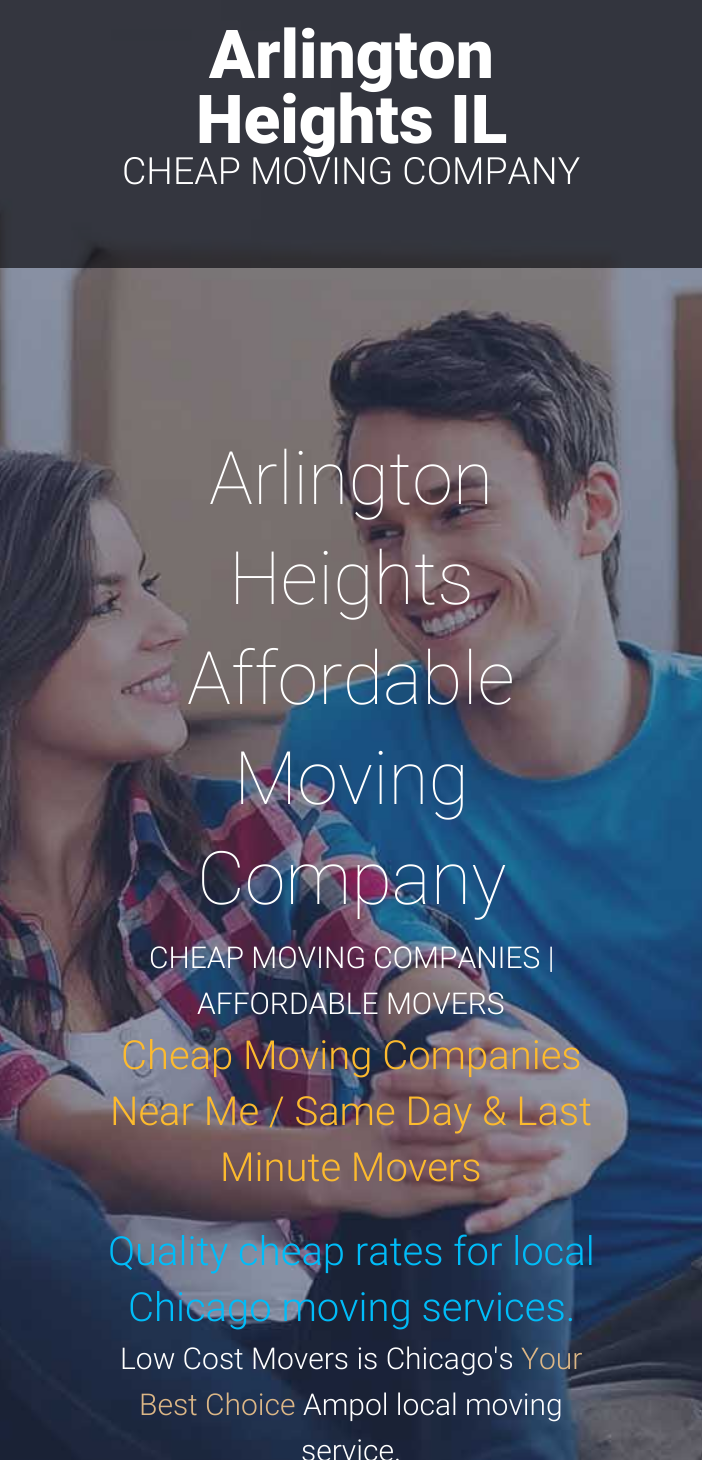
import math
import cairo

surface = cairo.ImageSurface(cairo.FORMAT_RGB24, 702, 1460)
ctx = cairo.Context(surface)
options = cairo.FontOptions()
options.set_hint_metrics(cairo.HINT_METRICS_OFF)
options.set_hint_style(cairo.HINT_STYLE_NONE)
ctx.set_font_options(options)
ctx.set_miter_limit(4)


def set_color(code):
    ctx.set_source_rgb(*(v / 255 for v in bytes.fromhex(code[-6:])))


def draw_text(x, y, s, family, size, color, bold=False, italic=False):
    ctx.select_font_face(family, cairo.FONT_SLANT_ITALIC if italic else cairo.FONT_SLANT_NORMAL, cairo.FONT_WEIGHT_BOLD if bold else cairo.FONT_WEIGHT_NORMAL)
    ctx.set_font_size(size)
    set_color(color)
    ctx.move_to(x, y)
    ctx.show_text(s)


def draw_image(path, x, y, w, h):
    ctx.save()
    ctx.set_source_surface(cairo.ImageSurface.create_from_png(path), x, y)
    ctx.rectangle(x, y, w, h)
    ctx.fill()
    ctx.restore()


set_color("#ffffff")
ctx.paint()
draw_image("assets/img1.png", 0, 0, 702, 1460)
ctx.set_source_rgba(0.063, 0.063, 0.082, 0.7)
ctx.rectangle(0, 0, 702, 268)
ctx.fill()
draw_text(209, 78, "Arlington", "Roboto Black", 67.5, "#ffffff")
draw_text(196, 143, "Heights IL", "Roboto Black", 67.5, "#ffffff")
draw_text(122, 184, "CHEAP MOVING COMPANY", "Roboto Light", 37.5, "#ffffff")
draw_text(209, 504, "Arlington", "Roboto Thin", 73.75, "#ffffff")
draw_text(229, 604, "Heights", "Roboto Thin", 73.75, "#ffffff")
draw_text(187, 704, "Affordable", "Roboto Thin", 73.75, "#ffffff")
draw_text(234, 804, "Moving", "Roboto Thin", 73.75, "#ffffff")
draw_text(197, 904, "Company", "Roboto Thin", 73.75, "#ffffff")
draw_text(149, 968, "CHEAP MOVING COMPANIES |", "Roboto Light", 30, "#ffffff")
draw_text(197, 1014, "AFFORDABLE MOVERS", "Roboto Light", 30, "#ffffff")
draw_text(121, 1069, "Cheap Moving Companies", "Roboto Light", 40, "#fcba2e")
draw_text(110, 1125, "Near Me / Same Day & Last", "Roboto Light", 40, "#fcba2e")
draw_text(220, 1181, "Minute Movers", "Roboto Light", 40, "#fcba2e")
draw_text(108, 1265, "Quality cheap rates for local", "Roboto Light", 40, "#00bcf8")
draw_text(128, 1321, "Chicago moving services.", "Roboto Light", 40, "#00bcf8")
draw_text(120, 1369, "Low Cost Movers is Chicago's", "Roboto Light", 30, "#ffffff")
draw_text(521, 1369, "Your", "Roboto Light", 30, "#dbb686")
draw_text(139, 1415, "Best Choice", "Roboto Light", 30, "#dbb686")
draw_text(303, 1415, "Ampol local moving", "Roboto Light", 30, "#ffffff")
draw_text(301, 1461, "service.", "Roboto Light", 30, "#ffffff")
surface.write_to_png("output.png")
